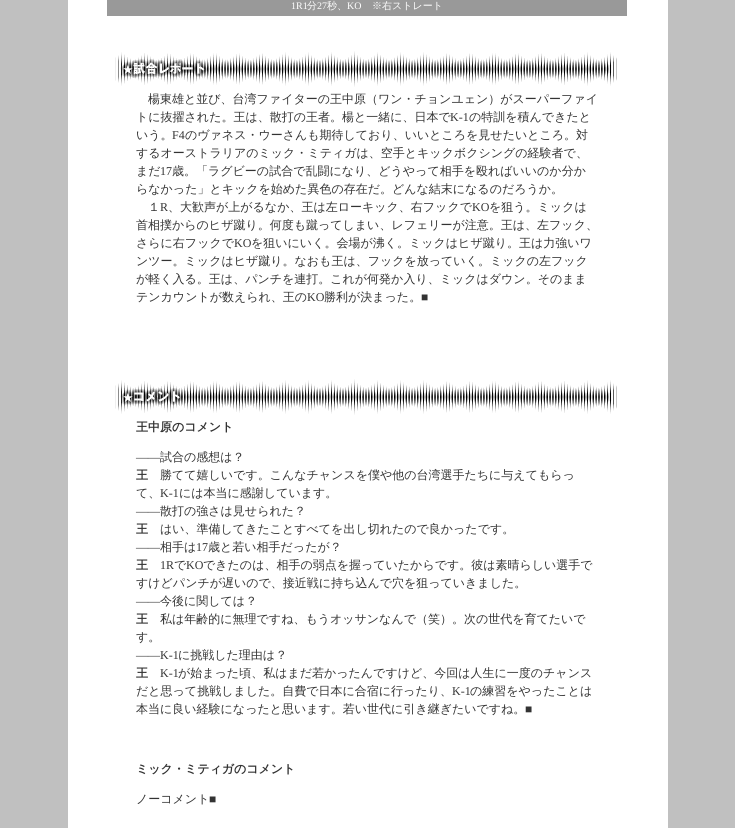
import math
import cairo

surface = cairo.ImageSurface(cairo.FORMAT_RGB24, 735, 828)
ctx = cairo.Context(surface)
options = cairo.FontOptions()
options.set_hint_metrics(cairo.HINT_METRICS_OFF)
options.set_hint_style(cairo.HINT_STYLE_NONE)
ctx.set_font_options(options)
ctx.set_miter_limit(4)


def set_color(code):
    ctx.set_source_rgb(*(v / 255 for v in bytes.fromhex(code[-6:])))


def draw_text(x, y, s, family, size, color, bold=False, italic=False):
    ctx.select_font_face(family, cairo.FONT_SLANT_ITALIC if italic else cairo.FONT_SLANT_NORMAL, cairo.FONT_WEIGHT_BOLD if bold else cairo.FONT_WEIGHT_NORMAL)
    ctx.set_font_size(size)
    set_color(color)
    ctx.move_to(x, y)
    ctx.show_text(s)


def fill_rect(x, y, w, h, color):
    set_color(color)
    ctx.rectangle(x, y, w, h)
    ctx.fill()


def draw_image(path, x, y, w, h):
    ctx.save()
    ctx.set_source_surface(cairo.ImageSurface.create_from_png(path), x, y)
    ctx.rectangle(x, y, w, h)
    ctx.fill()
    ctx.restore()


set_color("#c0c0c0")
ctx.paint()
fill_rect(68, 0, 600, 828, "#ffffff")
fill_rect(107, 0, 520, 16, "#999999")
draw_text(291, 9, "1R1", "Liberation Serif", 10, "#ffffff")
draw_text(307, 9, "分", "WenQuanYi Zen Hei Medium", 10, "#ffffff")
draw_text(317, 9, "27", "Liberation Serif", 10, "#ffffff")
draw_text(327, 9, "秒、", "WenQuanYi Zen Hei Medium", 10, "#ffffff")
draw_text(347, 9, "KO", "Liberation Serif", 10, "#ffffff")
draw_text(372, 9, "※右ストレート", "WenQuanYi Zen Hei Medium", 10, "#ffffff")
draw_image("assets/img1.png", 115, 51, 502, 36)
draw_text(148, 103, "楊東雄と並び、台湾ファイターの王中原（ワン・チョンユェン）がスーパーファイ", "WenQuanYi Zen Hei Medium", 12, "#333333")
draw_text(136, 121, "トに抜擢された。王は、散打の王者。楊と一緒に、日本で", "WenQuanYi Zen Hei Medium", 12, "#333333")
draw_text(450, 121, "K-1", "Liberation Serif", 12, "#333333")
draw_text(469, 121, "の特訓を積んできたと", "WenQuanYi Zen Hei Medium", 12, "#333333")
draw_text(136, 139, "いう。", "WenQuanYi Zen Hei Medium", 12, "#333333")
draw_text(172, 139, "F4", "Liberation Serif", 12, "#333333")
draw_text(185, 139, "のヴァネス・ウーさんも期待しており、いいところを見せたいところ。対", "WenQuanYi Zen Hei Medium", 12, "#333333")
draw_text(136, 157, "するオーストラリアのミック・ミティガは、空手とキックボクシングの経験者で、", "WenQuanYi Zen Hei Medium", 12, "#333333")
draw_text(136, 175, "まだ", "WenQuanYi Zen Hei Medium", 12, "#333333")
draw_text(160, 175, "17", "Liberation Serif", 12, "#333333")
draw_text(172, 175, "歳。「ラグビーの試合で乱闘になり、どうやって相手を殴ればいいのか分か", "WenQuanYi Zen Hei Medium", 12, "#333333")
draw_text(136, 193, "らなかった」とキックを始めた異色の存在だ。どんな結末になるのだろうか。", "WenQuanYi Zen Hei Medium", 12, "#333333")
draw_text(148, 211, "１", "WenQuanYi Zen Hei Medium", 12, "#333333")
draw_text(160, 211, "R", "Liberation Serif", 12, "#333333")
draw_text(168, 211, "、大歓声が上がるなか、王は左ローキック、右フックで", "WenQuanYi Zen Hei Medium", 12, "#333333")
draw_text(472, 211, "KO", "Liberation Serif", 12, "#333333")
draw_text(489, 211, "を狙う。ミックは", "WenQuanYi Zen Hei Medium", 12, "#333333")
draw_text(136, 229, "首相撲からのヒザ蹴り。何度も蹴ってしまい、レフェリーが注意。王は、左フック、", "WenQuanYi Zen Hei Medium", 12, "#333333")
draw_text(136, 247, "さらに右フックで", "WenQuanYi Zen Hei Medium", 12, "#333333")
draw_text(234, 247, "KO", "Liberation Serif", 12, "#333333")
draw_text(251, 247, "を狙いにいく。会場が沸く。ミックはヒザ蹴り。王は力強いワ", "WenQuanYi Zen Hei Medium", 12, "#333333")
draw_text(136, 265, "ンツー。ミックはヒザ蹴り。なおも王は、フックを放っていく。ミックの左フック", "WenQuanYi Zen Hei Medium", 12, "#333333")
draw_text(136, 283, "が軽く入る。王は、パンチを連打。これが何発か入り、ミックはダウン。そのまま", "WenQuanYi Zen Hei Medium", 12, "#333333")
draw_text(136, 301, "テンカウントが数えられ、王の", "WenQuanYi Zen Hei Medium", 12, "#333333")
draw_text(307, 301, "KO", "Liberation Serif", 12, "#333333")
draw_text(324, 301, "勝利が決まった。", "WenQuanYi Zen Hei Medium", 12, "#333333")
draw_text(421, 301, "■", "Liberation Serif", 12, "#333333")
draw_image("assets/img2.png", 115, 379, 502, 36)
draw_text(136, 431, "王中原のコメント", "WenQuanYi Zen Hei", 12, "#333333", bold=True)
draw_text(136, 461, "——", "Liberation Serif", 12, "#333333")
draw_text(160, 461, "試合の感想は？", "WenQuanYi Zen Hei Medium", 12, "#333333")
draw_text(136, 479, "王", "WenQuanYi Zen Hei", 12, "#333333", bold=True)
draw_text(160, 479, "勝てて嬉しいです。こんなチャンスを僕や他の台湾選手たちに与えてもらっ", "WenQuanYi Zen Hei Medium", 12, "#333333")
draw_text(136, 497, "て、", "WenQuanYi Zen Hei Medium", 12, "#333333")
draw_text(160, 497, "K-1", "Liberation Serif", 12, "#333333")
draw_text(179, 497, "には本当に感謝しています。", "WenQuanYi Zen Hei Medium", 12, "#333333")
draw_text(136, 515, "——", "Liberation Serif", 12, "#333333")
draw_text(160, 515, "散打の強さは見せられた？", "WenQuanYi Zen Hei Medium", 12, "#333333")
draw_text(136, 533, "王", "WenQuanYi Zen Hei", 12, "#333333", bold=True)
draw_text(160, 533, "はい、準備してきたことすべてを出し切れたので良かったです。", "WenQuanYi Zen Hei Medium", 12, "#333333")
draw_text(136, 551, "——", "Liberation Serif", 12, "#333333")
draw_text(160, 551, "相手は", "WenQuanYi Zen Hei Medium", 12, "#333333")
draw_text(196, 551, "17", "Liberation Serif", 12, "#333333")
draw_text(208, 551, "歳と若い相手だったが？", "WenQuanYi Zen Hei Medium", 12, "#333333")
draw_text(136, 569, "王", "WenQuanYi Zen Hei", 12, "#333333", bold=True)
draw_text(160, 569, "1R", "Liberation Serif", 12, "#333333")
draw_text(174, 569, "で", "WenQuanYi Zen Hei Medium", 12, "#333333")
draw_text(186, 569, "KO", "Liberation Serif", 12, "#333333")
draw_text(203, 569, "できたのは、相手の弱点を握っていたからです。彼は素晴らしい選手で", "WenQuanYi Zen Hei Medium", 12, "#333333")
draw_text(136, 587, "すけどパンチが遅いので、接近戦に持ち込んで穴を狙っていきました。", "WenQuanYi Zen Hei Medium", 12, "#333333")
draw_text(136, 605, "——", "Liberation Serif", 12, "#333333")
draw_text(160, 605, "今後に関しては？", "WenQuanYi Zen Hei Medium", 12, "#333333")
draw_text(136, 623, "王", "WenQuanYi Zen Hei", 12, "#333333", bold=True)
draw_text(160, 623, "私は年齢的に無理ですね、もうオッサンなんで（笑）。次の世代を育てたいで", "WenQuanYi Zen Hei Medium", 12, "#333333")
draw_text(136, 641, "す。", "WenQuanYi Zen Hei Medium", 12, "#333333")
draw_text(136, 659, "——K-1", "Liberation Serif", 12, "#333333")
draw_text(178, 659, "に挑戦した理由は？", "WenQuanYi Zen Hei Medium", 12, "#333333")
draw_text(136, 677, "王", "WenQuanYi Zen Hei", 12, "#333333", bold=True)
draw_text(160, 677, "K-1", "Liberation Serif", 12, "#333333")
draw_text(178, 677, "が始まった頃、私はまだ若かったんですけど、今回は人生に一度のチャンス", "WenQuanYi Zen Hei Medium", 12, "#333333")
draw_text(136, 695, "だと思って挑戦しました。自費で日本に合宿に行ったり、", "WenQuanYi Zen Hei Medium", 12, "#333333")
draw_text(452, 695, "K-1", "Liberation Serif", 12, "#333333")
draw_text(470, 695, "の練習をやったことは", "WenQuanYi Zen Hei Medium", 12, "#333333")
draw_text(136, 713, "本当に良い経験になったと思います。若い世代に引き継ぎたいですね。", "WenQuanYi Zen Hei Medium", 12, "#333333")
draw_text(525, 713, "■", "Liberation Serif", 12, "#333333")
draw_text(136, 773, "ミック・ミティガのコメント", "WenQuanYi Zen Hei", 12, "#333333", bold=True)
draw_text(136, 803, "ノーコメント", "WenQuanYi Zen Hei Medium", 12, "#333333")
draw_text(209, 803, "■", "Liberation Serif", 12, "#333333")
surface.write_to_png("output.png")
